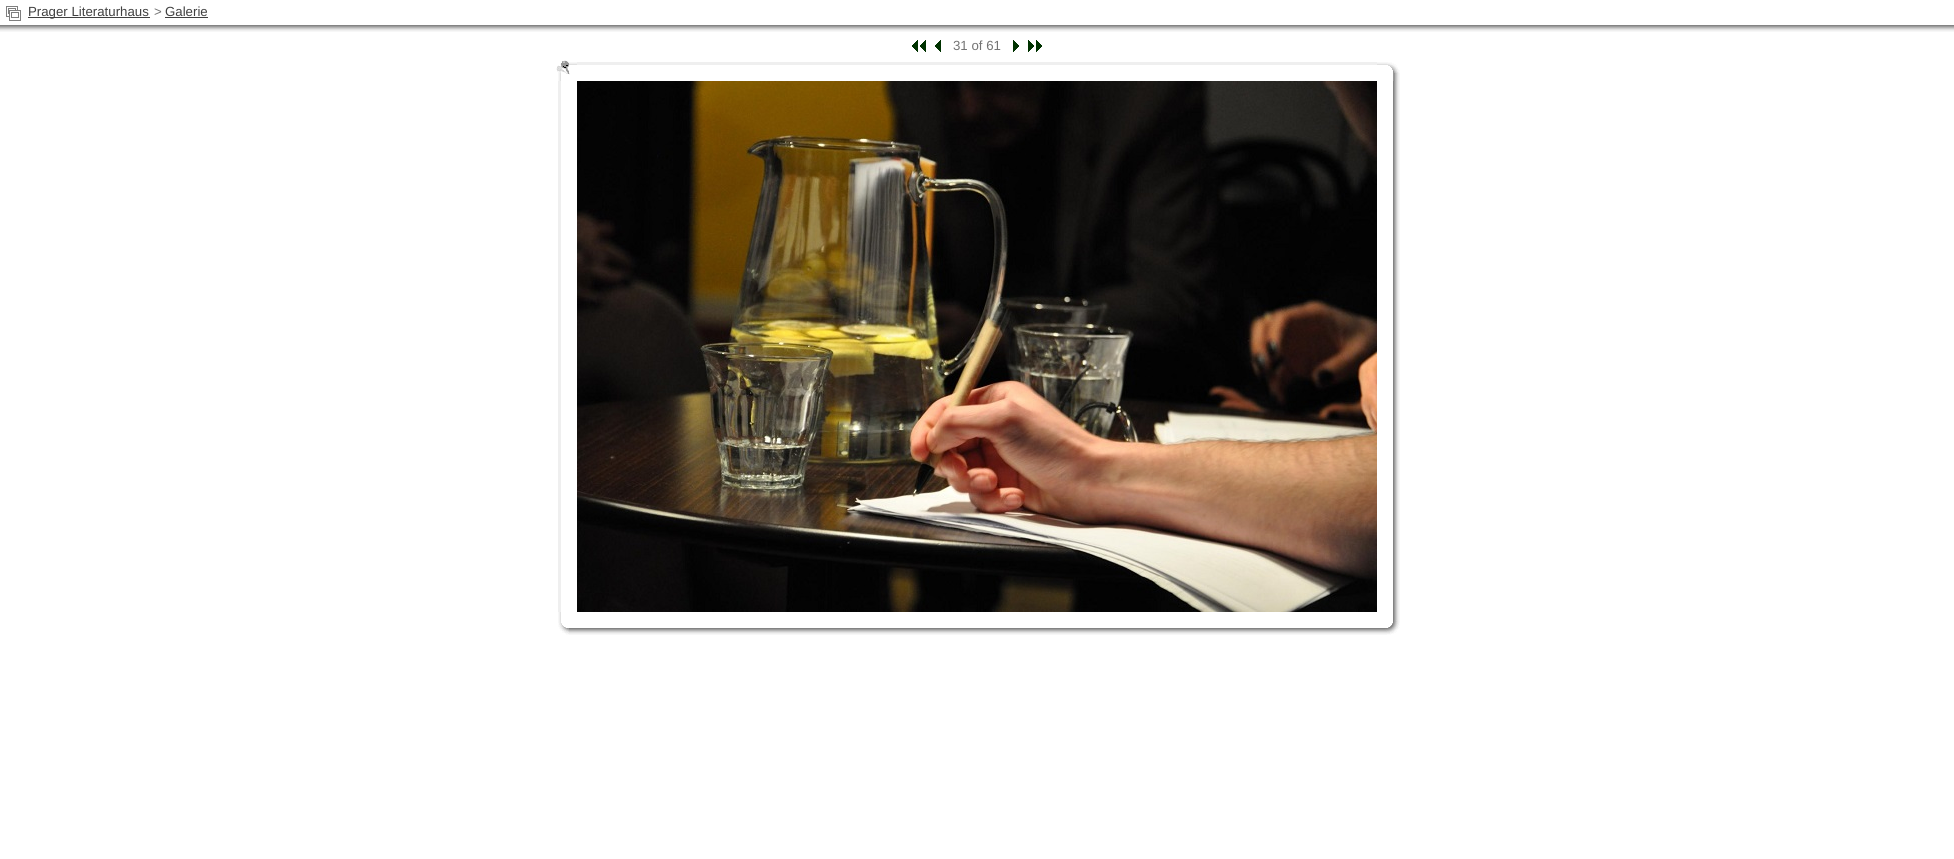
import math
import cairo

surface = cairo.ImageSurface(cairo.FORMAT_RGB24, 1954, 859)
ctx = cairo.Context(surface)
options = cairo.FontOptions()
options.set_hint_metrics(cairo.HINT_METRICS_OFF)
options.set_hint_style(cairo.HINT_STYLE_NONE)
ctx.set_font_options(options)
ctx.set_miter_limit(4)


def set_color(code):
    ctx.set_source_rgb(*(v / 255 for v in bytes.fromhex(code[-6:])))


def draw_text(x, y, s, family, size, color, bold=False, italic=False):
    ctx.select_font_face(family, cairo.FONT_SLANT_ITALIC if italic else cairo.FONT_SLANT_NORMAL, cairo.FONT_WEIGHT_BOLD if bold else cairo.FONT_WEIGHT_NORMAL)
    ctx.set_font_size(size)
    set_color(color)
    ctx.move_to(x, y)
    ctx.show_text(s)


def fill_rect(x, y, w, h, color):
    set_color(color)
    ctx.rectangle(x, y, w, h)
    ctx.fill()


def draw_image(path, x, y, w, h):
    ctx.save()
    ctx.set_source_surface(cairo.ImageSurface.create_from_png(path), x, y)
    ctx.rectangle(x, y, w, h)
    ctx.fill()
    ctx.restore()


set_color("#ffffff")
ctx.paint()
draw_image("assets/img1.png", 0, 25, 1954, 7)
draw_image("assets/img2.png", 6, 6, 15, 15)
fill_rect(28, 17, 122, 1, "#404040")
draw_text(28, 16, "Prager Literaturhaus", "Liberation Sans", 13.25, "#404040")
draw_text(154, 16, ">", "Liberation Sans", 13.25, "#737373")
draw_text(165, 16, "Galerie", "Liberation Sans", 13.25, "#404040")
fill_rect(165, 17, 43, 1, "#404040")
draw_image("assets/img3.png", 912, 40, 14, 12)
draw_image("assets/img4.png", 935, 40, 6, 12)
draw_text(953, 50, "31 of 61", "Liberation Sans", 13.25, "#737373")
draw_image("assets/img5.png", 1013, 40, 6, 12)
draw_image("assets/img6.png", 1028, 40, 14, 12)
draw_image("assets/img7.png", 556, 60, 21, 21)
fill_rect(577, 62, 800, 3, "#efefef")
draw_image("assets/img8.png", 1377, 62, 23, 19)
fill_rect(558, 81, 3, 531, "#efefef")
draw_image("assets/img9.png", 577, 81, 800, 531)
draw_image("assets/img10.png", 1393, 81, 7, 531)
draw_image("assets/img11.png", 558, 612, 19, 23)
draw_image("assets/img12.png", 577, 628, 800, 7)
draw_image("assets/img13.png", 1377, 612, 23, 23)
surface.write_to_png("output.png")
